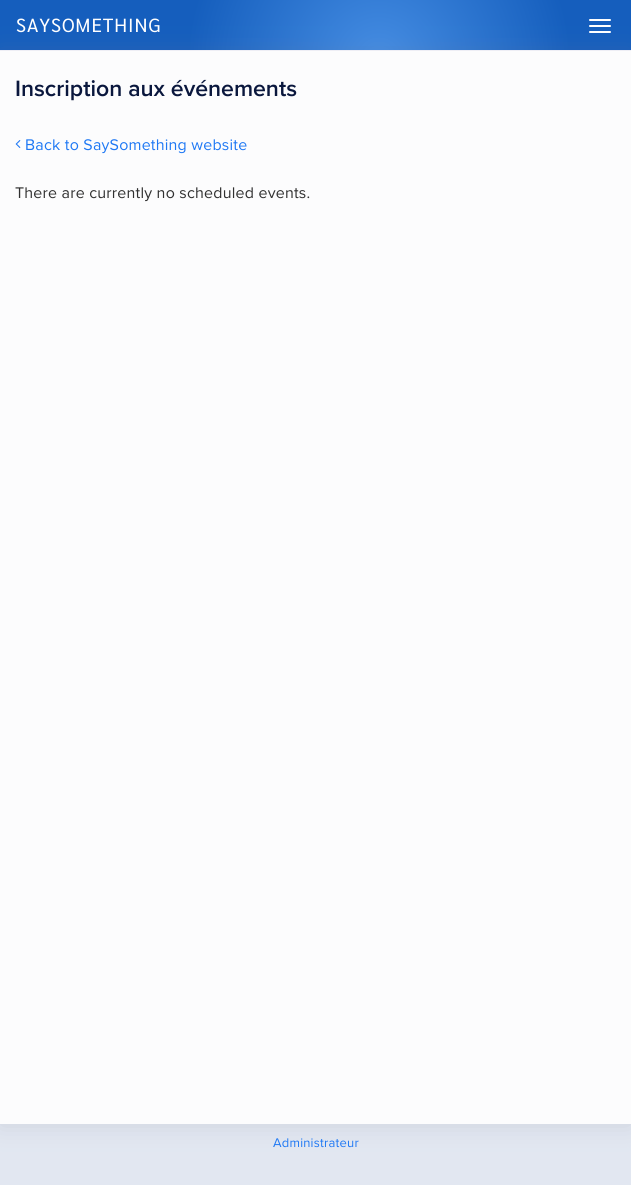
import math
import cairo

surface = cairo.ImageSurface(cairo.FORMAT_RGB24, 631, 1185)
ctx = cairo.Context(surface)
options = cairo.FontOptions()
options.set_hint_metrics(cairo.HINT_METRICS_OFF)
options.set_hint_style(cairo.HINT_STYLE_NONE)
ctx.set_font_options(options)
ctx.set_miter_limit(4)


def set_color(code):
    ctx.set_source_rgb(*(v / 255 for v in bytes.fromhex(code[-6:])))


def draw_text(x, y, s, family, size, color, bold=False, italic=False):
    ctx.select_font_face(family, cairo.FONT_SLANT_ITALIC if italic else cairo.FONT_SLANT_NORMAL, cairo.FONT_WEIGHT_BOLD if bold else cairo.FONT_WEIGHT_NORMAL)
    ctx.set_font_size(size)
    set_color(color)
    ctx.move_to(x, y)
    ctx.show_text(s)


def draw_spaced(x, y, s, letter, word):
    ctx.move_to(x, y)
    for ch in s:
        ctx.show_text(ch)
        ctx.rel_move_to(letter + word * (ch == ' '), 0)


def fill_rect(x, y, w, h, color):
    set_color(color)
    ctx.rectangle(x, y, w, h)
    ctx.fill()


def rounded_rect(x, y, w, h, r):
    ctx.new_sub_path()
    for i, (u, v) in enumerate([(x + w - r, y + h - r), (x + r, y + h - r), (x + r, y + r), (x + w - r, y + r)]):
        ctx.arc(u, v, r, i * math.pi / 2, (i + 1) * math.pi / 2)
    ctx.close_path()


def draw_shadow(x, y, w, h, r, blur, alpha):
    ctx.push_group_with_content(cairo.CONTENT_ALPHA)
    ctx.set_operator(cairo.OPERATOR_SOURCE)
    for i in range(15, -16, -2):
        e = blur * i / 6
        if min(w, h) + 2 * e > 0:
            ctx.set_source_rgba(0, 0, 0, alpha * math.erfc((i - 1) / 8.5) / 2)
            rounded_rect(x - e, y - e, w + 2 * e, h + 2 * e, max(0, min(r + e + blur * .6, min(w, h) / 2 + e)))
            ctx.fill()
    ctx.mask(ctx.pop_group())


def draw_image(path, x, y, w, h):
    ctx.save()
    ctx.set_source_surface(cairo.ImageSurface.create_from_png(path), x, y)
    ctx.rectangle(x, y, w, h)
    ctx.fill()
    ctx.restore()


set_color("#e2e7f1")
ctx.paint()
gradient = cairo.RadialGradient(379, 60, 0, 379, 60, 383)
gradient.add_color_stop_rgba(0, 0.271, 0.553, 0.89, 1)
gradient.add_color_stop_rgba(0.5, 0.082, 0.369, 0.741, 1)
ctx.set_source(gradient)
ctx.rectangle(0, 0, 631, 50)
ctx.fill()
set_color("#7a8493")
draw_shadow(0, 52, 631, 1074, 0, 12, 0.2)
ctx.select_font_face("Sarabun")
ctx.set_font_size(19)
set_color("#ffffff")
draw_spaced(16, 32, "SAYSOMETHING", 0.9, 0)
rounded_rect(589, 19, 22, 2, 1)
ctx.fill()
rounded_rect(589, 25, 22, 2, 1)
ctx.fill()
rounded_rect(589, 31, 22, 2, 1)
ctx.fill()
fill_rect(0, 51, 631, 1073, "#fcfcfd")
fill_rect(0, 50, 631, 1, "#eeeef5")
draw_text(15, 96, "Inscription aux événements", "Proxima Nova SemiBold", 23, "#0a173d")
draw_image("assets/img1.png", 15, 140, 6, 8)
ctx.select_font_face("Proxima Nova")
ctx.set_font_size(16)
set_color("#1e78f4")
draw_spaced(25, 150, "Back to SaySomething website", 0.2, 0)
set_color("#303030")
draw_spaced(15, 198, "There are currently no scheduled events.", 0.2, 0)
ctx.set_font_size(13)
set_color("#1e78f4")
draw_spaced(273, 1147, "Administrateur", 0.2, 0)
surface.write_to_png("output.png")
